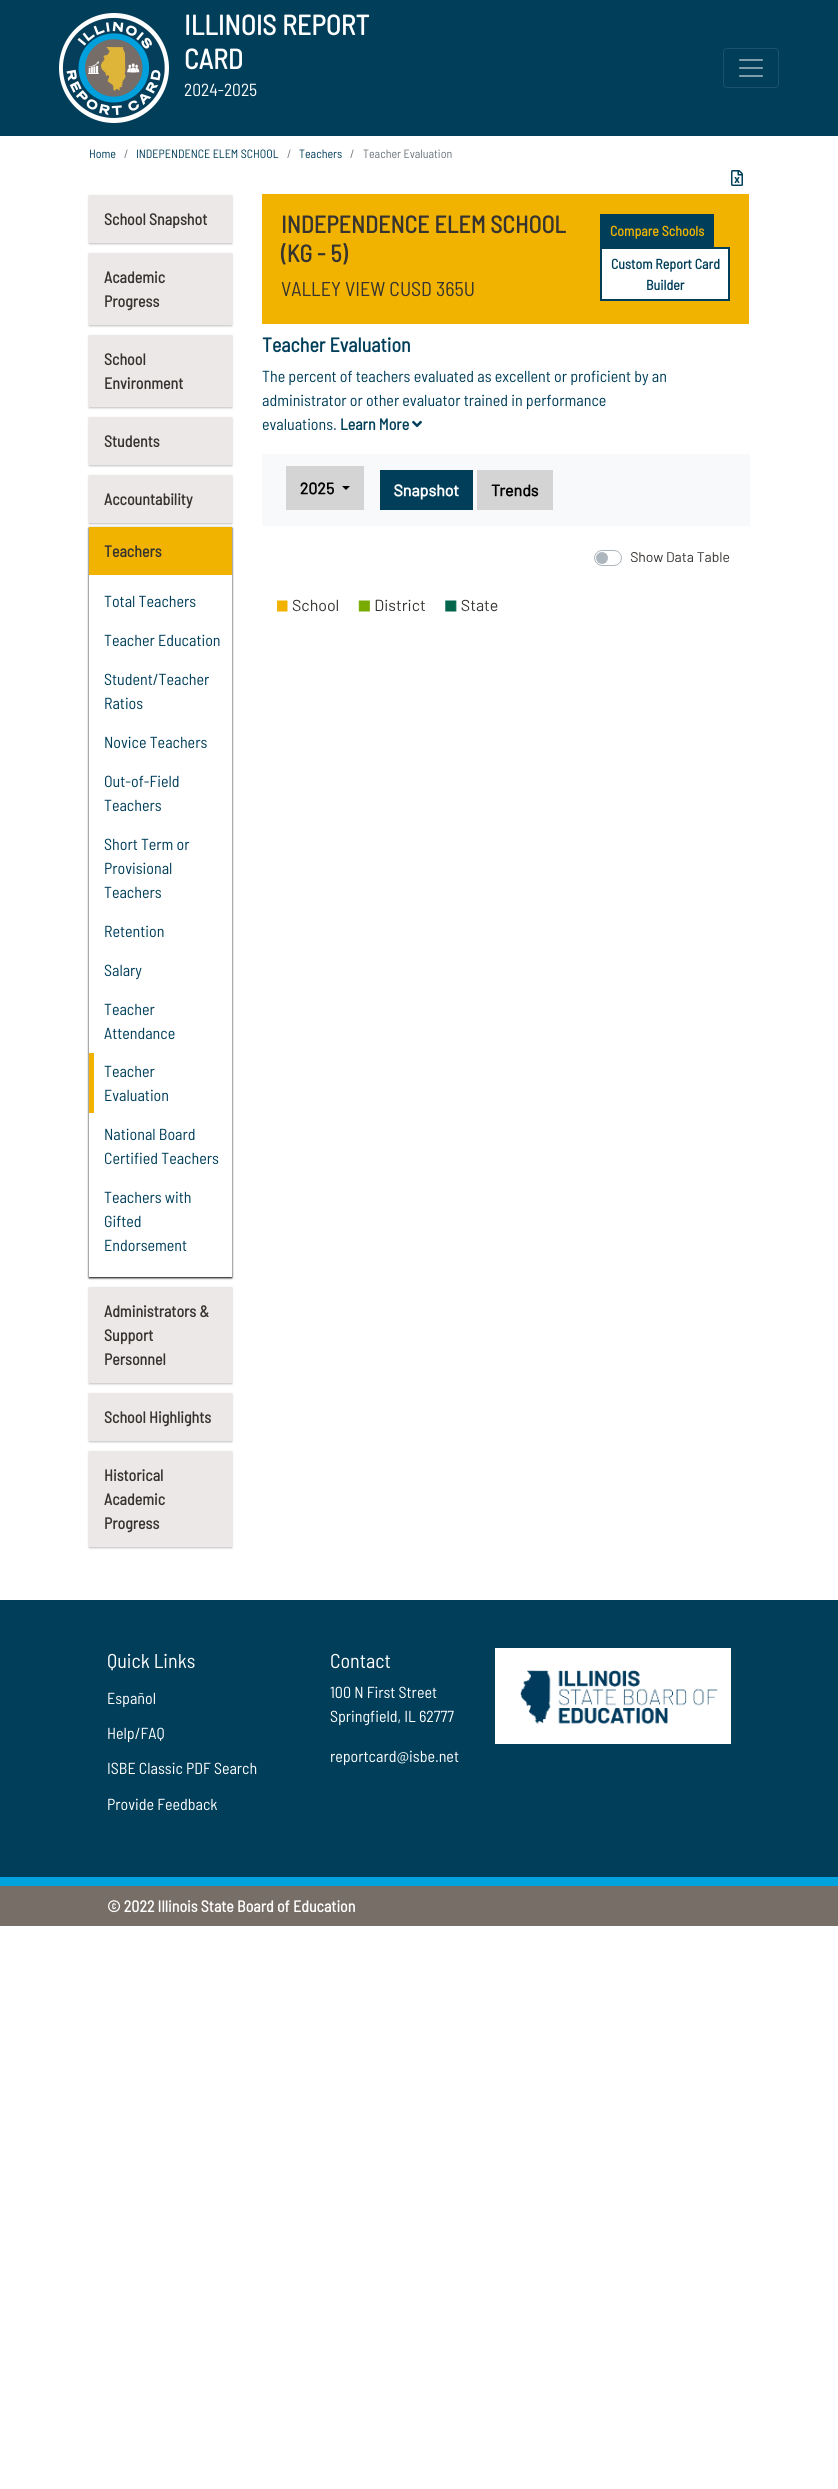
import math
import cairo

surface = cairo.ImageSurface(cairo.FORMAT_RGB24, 838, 2489)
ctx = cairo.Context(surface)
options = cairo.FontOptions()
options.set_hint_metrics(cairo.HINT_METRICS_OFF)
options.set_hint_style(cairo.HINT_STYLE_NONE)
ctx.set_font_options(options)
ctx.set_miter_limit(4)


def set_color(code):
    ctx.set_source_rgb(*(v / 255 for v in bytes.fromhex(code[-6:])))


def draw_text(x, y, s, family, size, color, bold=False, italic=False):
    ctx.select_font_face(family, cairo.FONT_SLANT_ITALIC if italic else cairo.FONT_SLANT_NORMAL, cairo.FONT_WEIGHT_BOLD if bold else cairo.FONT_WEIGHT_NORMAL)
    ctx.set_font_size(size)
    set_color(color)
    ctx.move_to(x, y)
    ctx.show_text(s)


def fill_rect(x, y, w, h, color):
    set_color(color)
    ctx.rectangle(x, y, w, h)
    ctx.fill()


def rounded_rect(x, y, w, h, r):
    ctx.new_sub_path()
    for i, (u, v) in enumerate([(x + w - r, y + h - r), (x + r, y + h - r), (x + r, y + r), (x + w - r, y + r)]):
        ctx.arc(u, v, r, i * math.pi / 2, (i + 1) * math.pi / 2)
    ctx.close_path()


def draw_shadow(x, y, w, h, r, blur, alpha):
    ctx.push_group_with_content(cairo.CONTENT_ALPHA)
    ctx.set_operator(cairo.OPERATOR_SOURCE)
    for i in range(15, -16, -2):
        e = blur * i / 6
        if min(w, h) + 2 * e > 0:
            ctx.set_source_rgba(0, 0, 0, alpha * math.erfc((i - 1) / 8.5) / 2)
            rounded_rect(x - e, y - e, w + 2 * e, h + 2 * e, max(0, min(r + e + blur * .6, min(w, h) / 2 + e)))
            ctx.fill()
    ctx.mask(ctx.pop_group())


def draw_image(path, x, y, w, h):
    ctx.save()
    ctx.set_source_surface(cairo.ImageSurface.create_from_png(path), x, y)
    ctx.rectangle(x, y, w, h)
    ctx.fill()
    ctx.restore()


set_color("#ffffff")
ctx.paint()
fill_rect(0, 0, 838, 136, "#003e5a")
draw_image("assets/img1.png", 59, 13, 110, 110)
draw_text(184, 35, "ILLINOIS REPORT", "Barlow Semi Condensed", 28, "#ffffff", bold=True)
draw_text(184, 69, "CARD", "Barlow Semi Condensed", 28, "#ffffff", bold=True)
draw_text(184, 96, "2024-2025", "Barlow Semi Condensed", 17.5, "#ffffff")
rounded_rect(723.5, 48.5, 55, 39, 3.5)
set_color("#1a516b")
ctx.set_line_width(1)
ctx.stroke()
draw_image("assets/img2.png", 739, 59, 24, 18)
draw_text(89, 158, "Home", "Barlow Semi Condensed", 12, "#003e5a")
draw_text(124, 158, "/", "Barlow Semi Condensed", 12, "#6c757d")
draw_text(136, 158, "INDEPENDENCE ELEM SCHOOL", "Barlow Semi Condensed", 12, "#003e5a")
draw_text(287, 158, "/", "Barlow Semi Condensed", 12, "#6c757d")
draw_text(299, 158, "Teachers", "Barlow Semi Condensed", 12, "#003e5a")
draw_text(350, 158, "/", "Barlow Semi Condensed", 12, "#6c757d")
draw_text(363, 158, "Teacher Evaluation", "Barlow Semi Condensed", 12, "#6c757d")
set_color("#000000")
draw_shadow(89, 196, 143, 48, 0, 1, 0.25)
fill_rect(89, 195, 143, 48, "#ebe8e7")
draw_text(104, 225, "School Snapshot", "Barlow Semi Condensed", 16, "#363330", bold=True)
set_color("#000000")
draw_shadow(89, 254, 143, 72, 0, 1, 0.25)
fill_rect(89, 253, 143, 72, "#ebe8e7")
draw_text(104, 283, "Academic", "Barlow Semi Condensed", 16, "#363330", bold=True)
draw_text(104, 307, "Progress", "Barlow Semi Condensed", 16, "#363330", bold=True)
set_color("#000000")
draw_shadow(89, 336, 143, 72, 0, 1, 0.25)
fill_rect(89, 335, 143, 72, "#ebe8e7")
draw_text(104, 365, "School", "Barlow Semi Condensed", 16, "#363330", bold=True)
draw_text(104, 389, "Environment", "Barlow Semi Condensed", 16, "#363330", bold=True)
set_color("#000000")
draw_shadow(89, 418, 143, 48, 0, 1, 0.25)
fill_rect(89, 417, 143, 48, "#ebe8e7")
draw_text(104, 447, "Students", "Barlow Semi Condensed", 16, "#363330", bold=True)
set_color("#000000")
draw_shadow(89, 476, 143, 48, 0, 1, 0.25)
fill_rect(89, 475, 143, 48, "#ebe8e7")
draw_text(104, 505, "Accountability", "Barlow Semi Condensed", 16, "#363330", bold=True)
ctx.save()
ctx.set_fill_rule(cairo.FILL_RULE_EVEN_ODD)
ctx.new_path()
ctx.move_to(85, 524)
ctx.line_to(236, 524)
ctx.line_to(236, 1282)
ctx.line_to(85, 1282)
ctx.close_path()
ctx.move_to(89, 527)
ctx.line_to(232, 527)
ctx.line_to(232, 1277)
ctx.line_to(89, 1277)
ctx.close_path()
ctx.clip()
set_color("#000000")
draw_shadow(89, 528, 143, 750, 0, 1, 1)
ctx.restore()
fill_rect(89, 527, 143, 48, "#f1b300")
draw_text(104, 557, "Teachers", "Barlow Semi Condensed", 16, "#363330", bold=True)
draw_text(104, 607, "Total Teachers", "Barlow Semi Condensed", 16, "#003e5a")
draw_text(104, 646, "Teacher Education", "Barlow Semi Condensed", 16, "#003e5a")
draw_text(104, 685, "Student/Teacher", "Barlow Semi Condensed", 16, "#003e5a")
draw_text(104, 709, "Ratios", "Barlow Semi Condensed", 16, "#003e5a")
draw_text(104, 748, "Novice Teachers", "Barlow Semi Condensed", 16, "#003e5a")
draw_text(104, 787, "Out-of-Field", "Barlow Semi Condensed", 16, "#003e5a")
draw_text(104, 811, "Teachers", "Barlow Semi Condensed", 16, "#003e5a")
draw_text(104, 850, "Short Term or", "Barlow Semi Condensed", 16, "#003e5a")
draw_text(104, 874, "Provisional", "Barlow Semi Condensed", 16, "#003e5a")
draw_text(104, 898, "Teachers", "Barlow Semi Condensed", 16, "#003e5a")
draw_text(104, 937, "Retention", "Barlow Semi Condensed", 16, "#003e5a")
draw_text(104, 976, "Salary", "Barlow Semi Condensed", 16, "#003e5a")
draw_text(104, 1015, "Teacher", "Barlow Semi Condensed", 16, "#003e5a")
draw_text(104, 1039, "Attendance", "Barlow Semi Condensed", 16, "#003e5a")
fill_rect(89, 1053, 5, 60, "#f1b300")
draw_text(104, 1077, "Teacher", "Barlow Semi Condensed", 16, "#003e5a")
draw_text(104, 1101, "Evaluation", "Barlow Semi Condensed", 16, "#003e5a")
draw_text(104, 1140, "National Board", "Barlow Semi Condensed", 16, "#003e5a")
draw_text(104, 1164, "Certified Teachers", "Barlow Semi Condensed", 16, "#003e5a")
draw_text(104, 1203, "Teachers with", "Barlow Semi Condensed", 16, "#003e5a")
draw_text(104, 1227, "Gifted", "Barlow Semi Condensed", 16, "#003e5a")
draw_text(104, 1251, "Endorsement", "Barlow Semi Condensed", 16, "#003e5a")
set_color("#000000")
draw_shadow(89, 1288, 143, 96, 0, 1, 0.25)
fill_rect(89, 1287, 143, 96, "#ebe8e7")
draw_text(104, 1317, "Administrators &", "Barlow Semi Condensed", 16, "#363330", bold=True)
draw_text(104, 1341, "Support", "Barlow Semi Condensed", 16, "#363330", bold=True)
draw_text(104, 1365, "Personnel", "Barlow Semi Condensed", 16, "#363330", bold=True)
set_color("#000000")
draw_shadow(89, 1394, 143, 48, 0, 1, 0.25)
fill_rect(89, 1393, 143, 48, "#ebe8e7")
draw_text(104, 1423, "School Highlights", "Barlow Semi Condensed", 16, "#363330", bold=True)
set_color("#000000")
draw_shadow(89, 1452, 143, 96, 0, 1, 0.25)
fill_rect(89, 1451, 143, 96, "#ebe8e7")
draw_text(104, 1481, "Historical", "Barlow Semi Condensed", 16, "#363330", bold=True)
draw_text(104, 1505, "Academic", "Barlow Semi Condensed", 16, "#363330", bold=True)
draw_text(104, 1529, "Progress", "Barlow Semi Condensed", 16, "#363330", bold=True)
draw_image("assets/img3.png", 731, 170, 12, 16)
ctx.rectangle(264, 196, 483, 126)
set_color("#f1b300")
ctx.set_line_width(4)
ctx.stroke()
fill_rect(266, 198, 479, 122, "#f1b300")
draw_text(281, 233, "INDEPENDENCE ELEM SCHOOL", "Barlow Semi Condensed", 24, "#363330", bold=True)
draw_text(281, 262, "(KG - 5)", "Barlow Semi Condensed", 24, "#363330", bold=True)
draw_text(281, 296, "VALLEY VIEW CUSD 365U", "Barlow Semi Condensed", 20, "#363330")
fill_rect(600, 214, 114, 33, "#003e5a")
draw_text(610, 236, "Compare Schools", "Barlow Semi Condensed", 14, "#f1b300", bold=True)
set_color("#ffffff")
ctx.rectangle(601, 248, 128, 52)
ctx.fill_preserve()
set_color("#003e5a")
ctx.set_line_width(2)
ctx.stroke()
draw_text(611, 269, "Custom Report Card", "Barlow Semi Condensed", 14, "#003e5a", bold=True)
draw_text(646, 290, "Builder", "Barlow Semi Condensed", 14, "#003e5a", bold=True)
draw_text(262, 352, "Teacher Evaluation", "Barlow Semi Condensed", 20, "#003e5a", bold=True)
draw_text(262, 382, "The percent of teachers evaluated as excellent or proficient by an", "Barlow Semi Condensed", 16, "#003e5a")
draw_text(262, 406, "administrator or other evaluator trained in performance", "Barlow Semi Condensed", 16, "#003e5a")
draw_text(262, 430, "evaluations.", "Barlow Semi Condensed", 16, "#003e5a")
draw_text(340, 430, "Learn More", "Barlow Semi Condensed", 16, "#003e5a", bold=True)
draw_image("assets/img4.png", 412, 420, 10, 8)
draw_image("assets/img5.png", 262, 446, 488, 166)
fill_rect(0, 1600, 838, 277, "#003e5a")
draw_text(107, 1668, "Quick Links", "Barlow Semi Condensed", 20, "#ffffff")
draw_text(107, 1704, "Español", "Barlow Semi Condensed", 16, "#ffffff")
draw_text(107, 1739, "Help/FAQ", "Barlow Semi Condensed", 16, "#ffffff")
draw_text(107, 1774, "ISBE Classic PDF Search", "Barlow Semi Condensed", 16, "#ffffff")
draw_text(107, 1810, "Provide Feedback", "Barlow Semi Condensed", 16, "#ffffff")
draw_text(330, 1668, "Contact", "Barlow Semi Condensed", 20, "#ffffff")
draw_text(330, 1698, "100 N First Street", "Barlow Semi Condensed", 16, "#ffffff")
draw_text(330, 1722, "Springfield, IL 62777", "Barlow Semi Condensed", 16, "#ffffff")
draw_text(330, 1762, "reportcard@isbe.net", "Barlow Semi Condensed", 16, "#ffffff")
fill_rect(495, 1648, 236, 96, "#ffffff")
draw_image("assets/img6.png", 520, 1670, 198, 54)
fill_rect(0, 1886, 838, 40, "#776e67")
fill_rect(0, 1877, 838, 9, "#00a3de")
draw_text(107, 1912, "© 2022 Illinois State Board of Education", "Barlow Semi Condensed", 16, "#ffffff", bold=True)
surface.write_to_png("output.png")
